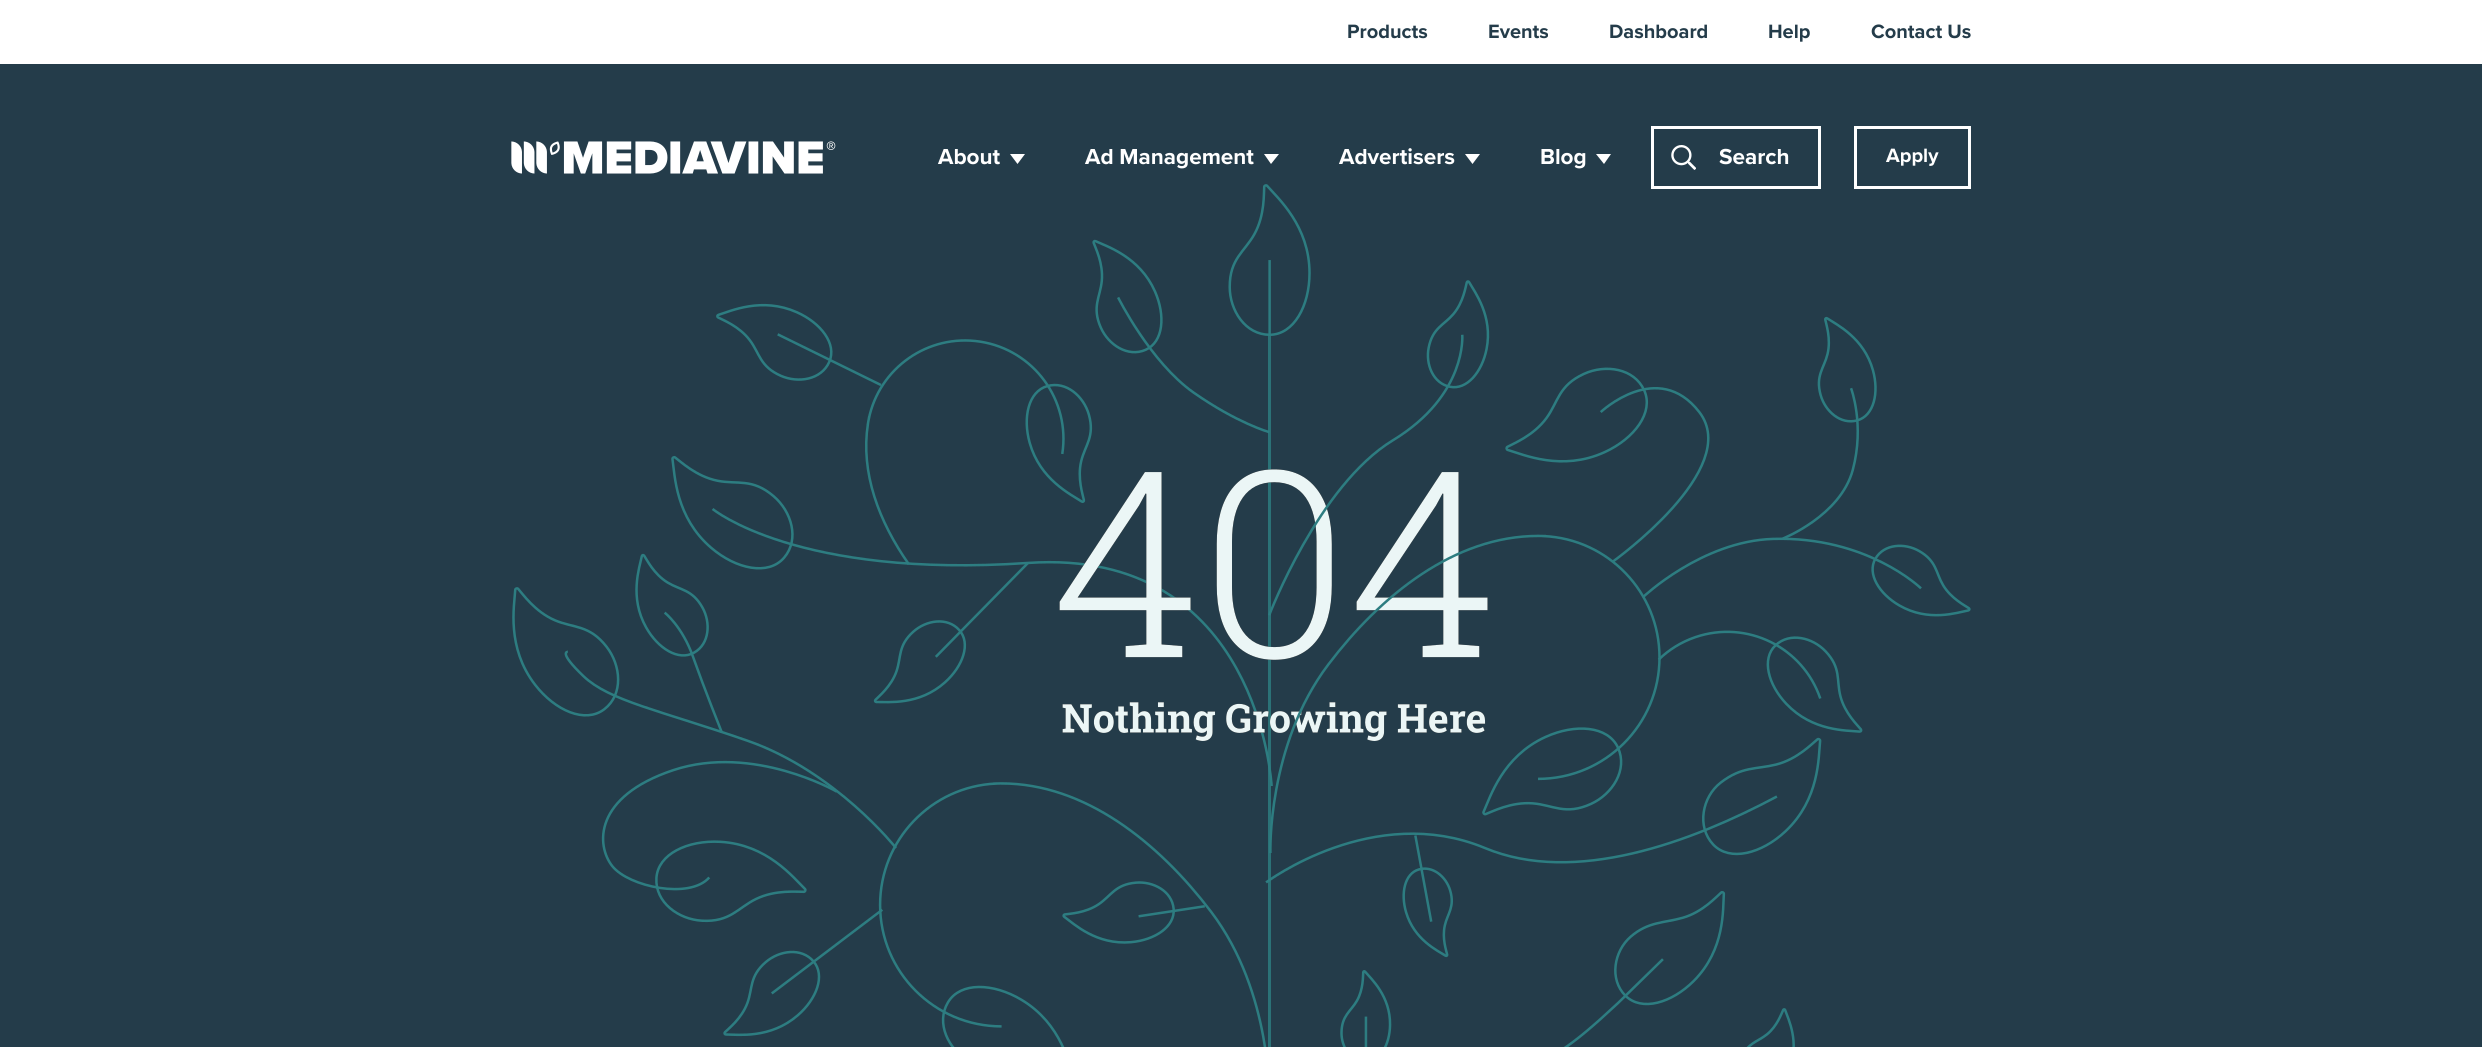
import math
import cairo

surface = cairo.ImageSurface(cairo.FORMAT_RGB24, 2482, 1047)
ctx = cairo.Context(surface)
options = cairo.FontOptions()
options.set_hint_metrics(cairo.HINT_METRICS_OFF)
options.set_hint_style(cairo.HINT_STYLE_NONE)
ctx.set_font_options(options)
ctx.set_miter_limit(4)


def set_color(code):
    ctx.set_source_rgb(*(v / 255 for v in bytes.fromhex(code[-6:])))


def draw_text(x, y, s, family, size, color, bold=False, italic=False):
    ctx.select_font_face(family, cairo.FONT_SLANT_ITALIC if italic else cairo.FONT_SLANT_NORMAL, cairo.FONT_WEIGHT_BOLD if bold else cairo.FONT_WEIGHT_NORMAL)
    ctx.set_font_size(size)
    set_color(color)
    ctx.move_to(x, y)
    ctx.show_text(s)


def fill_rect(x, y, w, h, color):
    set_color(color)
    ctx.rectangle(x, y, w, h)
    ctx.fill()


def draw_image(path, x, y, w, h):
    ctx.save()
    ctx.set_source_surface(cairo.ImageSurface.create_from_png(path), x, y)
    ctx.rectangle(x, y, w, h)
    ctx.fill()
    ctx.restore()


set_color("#ffffff")
ctx.paint()
draw_text(1347, 38, "Products", "Proxima Nova", 20, "#243c4a", bold=True)
draw_text(1488, 38, "Events", "Proxima Nova", 20, "#243c4a", bold=True)
draw_text(1609, 38, "Dashboard", "Proxima Nova", 20, "#243c4a", bold=True)
draw_text(1768, 38, "Help", "Proxima Nova", 20, "#243c4a", bold=True)
draw_text(1871, 38, "Contact Us", "Proxima Nova", 20, "#243c4a", bold=True)
fill_rect(0, 64, 2482, 983, "#243c4a")
draw_image("assets/img1.png", 511, 141, 325, 33)
draw_text(938, 164, "About", "Proxima Nova", 22.5, "#ffffff", bold=True)
ctx.new_path()
ctx.move_to(1010, 154)
ctx.line_to(1025, 154)
ctx.line_to(1017.5, 164)
ctx.close_path()
ctx.fill()
draw_text(1085, 164, "Ad Management", "Proxima Nova", 22.5, "#ffffff", bold=True)
ctx.new_path()
ctx.move_to(1264, 154)
ctx.line_to(1279, 154)
ctx.line_to(1271, 164)
ctx.close_path()
ctx.fill()
draw_text(1339, 164, "Advertisers", "Proxima Nova", 22.5, "#ffffff", bold=True)
ctx.new_path()
ctx.move_to(1465, 154)
ctx.line_to(1480, 154)
ctx.line_to(1472.5, 164)
ctx.close_path()
ctx.fill()
draw_text(1540, 164, "Blog", "Proxima Nova", 22.5, "#ffffff", bold=True)
ctx.new_path()
ctx.move_to(1596, 154)
ctx.line_to(1611, 154)
ctx.line_to(1604, 164)
ctx.close_path()
ctx.fill()
draw_image("assets/img3.png", 512, 184, 1459, 863)
ctx.rectangle(1652.5, 127.5, 167, 60)
ctx.set_line_width(3)
ctx.stroke()
draw_image("assets/img2.png", 1671, 145, 25, 25)
draw_text(1719, 164, "Search", "Proxima Nova", 22.5, "#ffffff", bold=True)
ctx.rectangle(1855.5, 127.5, 114, 60)
ctx.stroke()
draw_text(1886, 162, "Apply", "Proxima Nova", 20, "#ffffff", bold=True)
surface.write_to_png("output.png")
